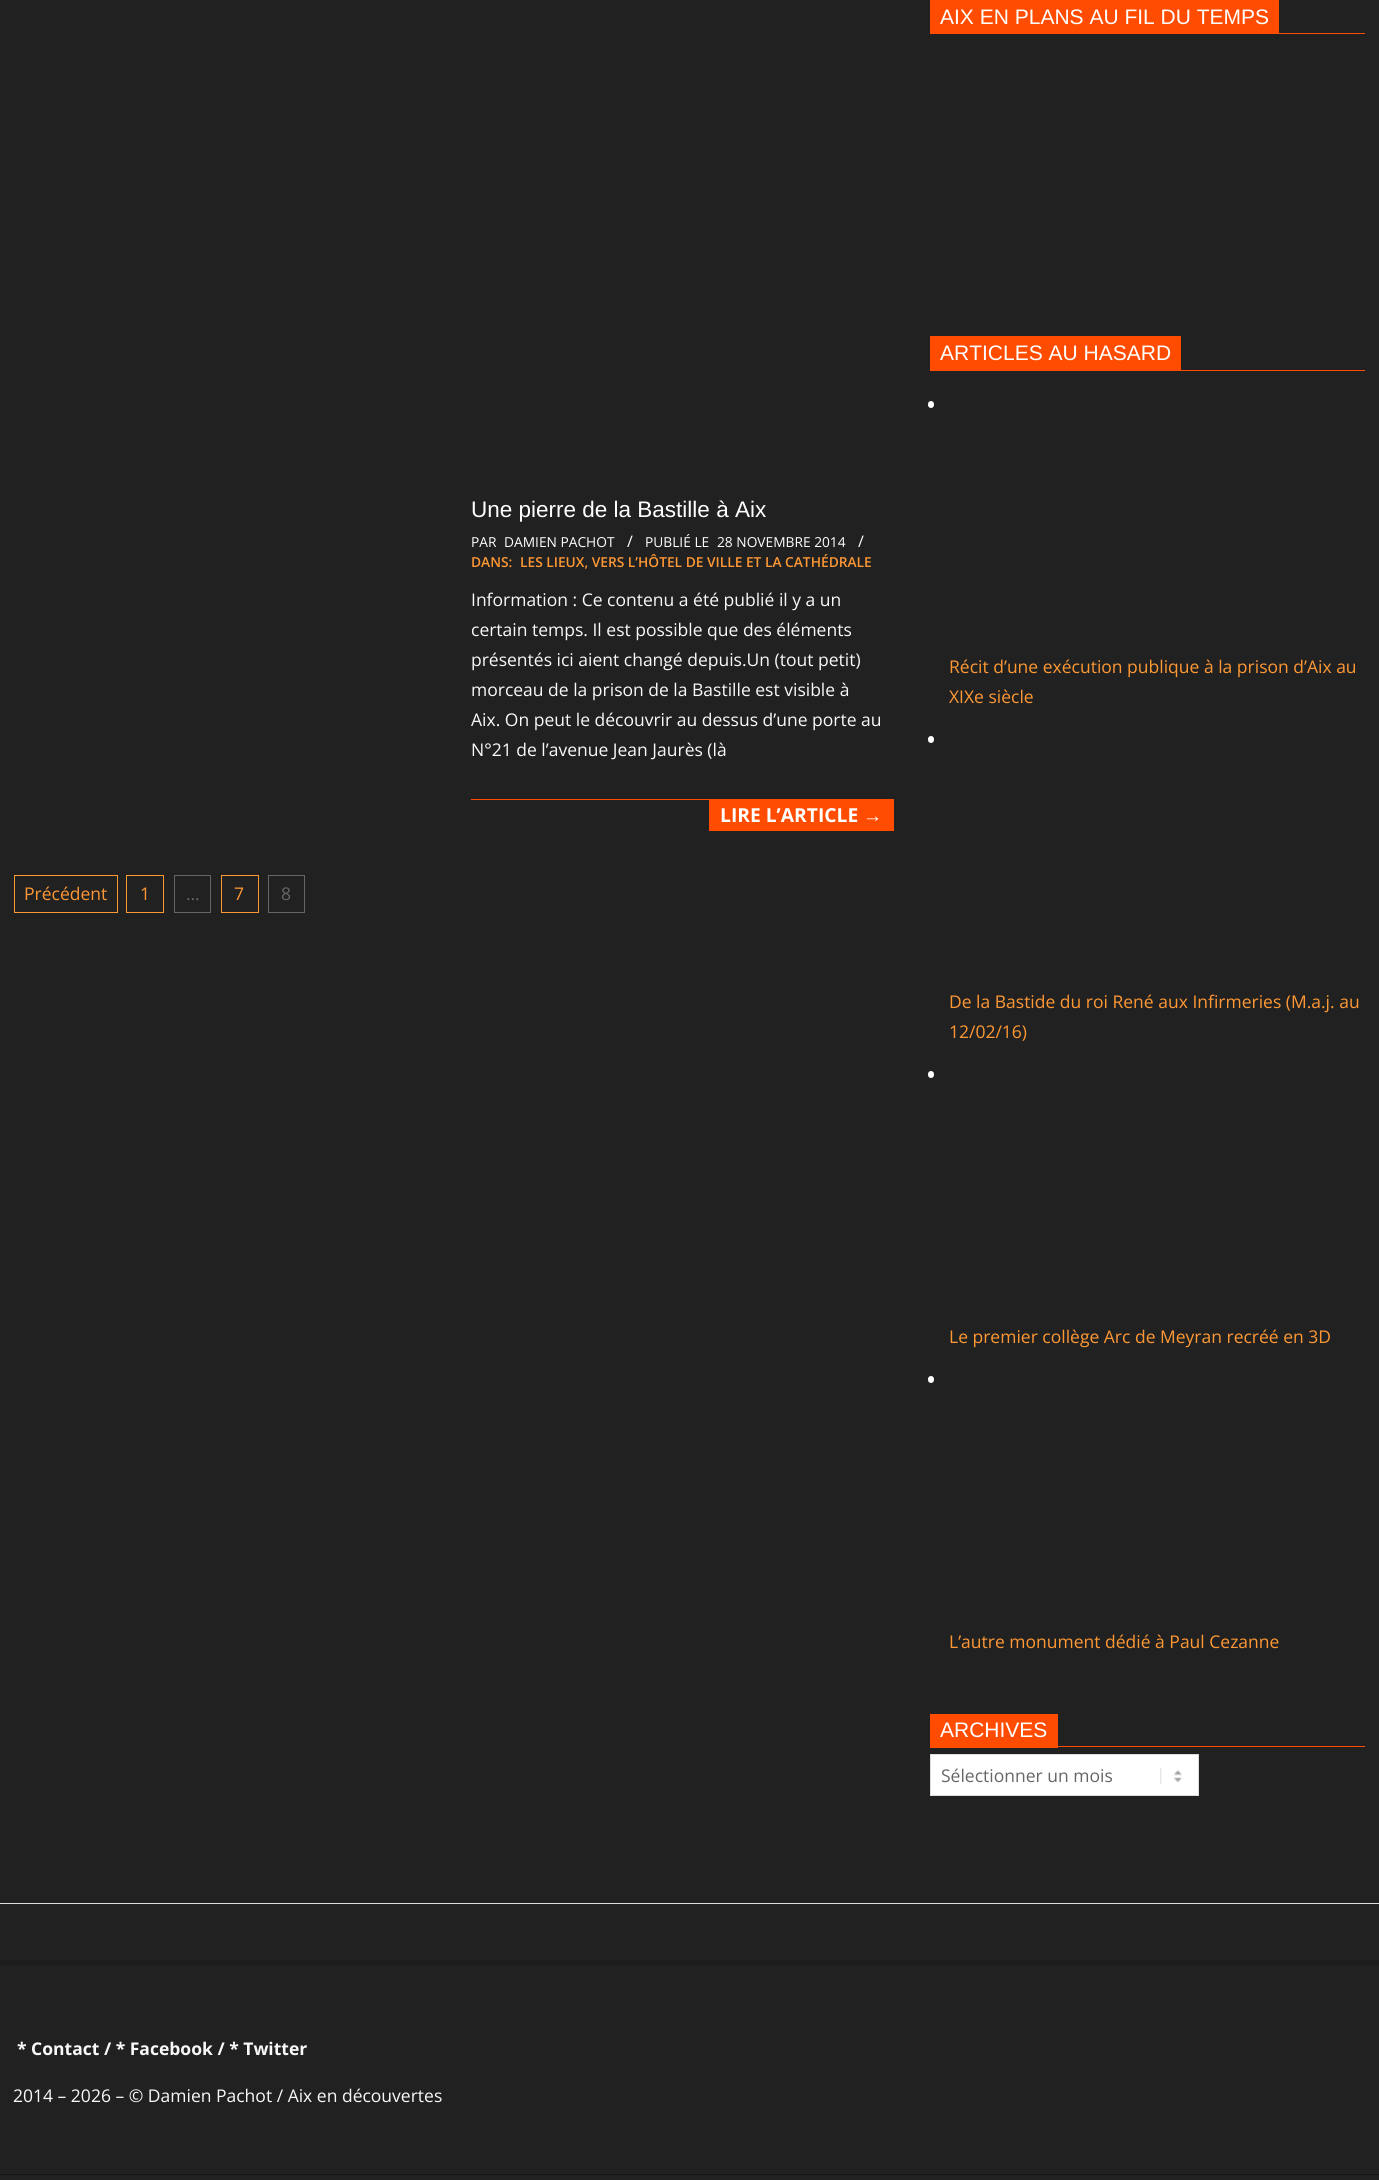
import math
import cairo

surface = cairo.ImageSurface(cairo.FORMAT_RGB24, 1379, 2180)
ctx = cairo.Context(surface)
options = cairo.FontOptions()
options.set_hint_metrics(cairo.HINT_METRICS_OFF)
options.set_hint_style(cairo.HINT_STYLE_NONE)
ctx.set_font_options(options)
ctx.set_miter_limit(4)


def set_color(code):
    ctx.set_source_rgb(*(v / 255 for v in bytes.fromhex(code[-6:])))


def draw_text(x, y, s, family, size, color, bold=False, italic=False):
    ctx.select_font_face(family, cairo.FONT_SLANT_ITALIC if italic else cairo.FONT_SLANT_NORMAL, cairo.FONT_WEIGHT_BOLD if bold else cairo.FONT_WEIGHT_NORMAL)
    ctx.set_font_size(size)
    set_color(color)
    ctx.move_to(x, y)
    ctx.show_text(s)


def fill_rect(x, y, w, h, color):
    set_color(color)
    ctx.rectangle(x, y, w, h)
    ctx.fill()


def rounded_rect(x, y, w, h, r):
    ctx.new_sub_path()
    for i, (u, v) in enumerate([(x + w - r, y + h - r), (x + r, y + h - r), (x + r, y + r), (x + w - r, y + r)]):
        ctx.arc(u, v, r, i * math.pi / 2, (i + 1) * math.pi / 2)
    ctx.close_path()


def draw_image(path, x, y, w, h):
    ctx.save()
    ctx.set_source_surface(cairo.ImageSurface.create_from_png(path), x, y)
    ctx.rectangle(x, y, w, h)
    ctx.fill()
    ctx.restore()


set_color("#212121")
ctx.paint()
draw_text(471, 517, "Une pierre de la Bastille à Aix", "Liberation Sans", 22.5, "#ffffff")
draw_text(471, 547, "PAR", "Open Sans", 13.75, "#ffffff")
draw_text(504, 547, "DAMIEN PACHOT", "Open Sans", 13.75, "#ffffff")
draw_text(627, 547, "/", "Open Sans", 16, "#ffffff")
draw_text(645, 547, "PUBLIÉ LE", "Open Sans", 13.75, "#ffffff")
draw_text(717, 547, "28 NOVEMBRE 2014", "Open Sans", 13.75, "#ffffff")
draw_text(858, 547, "/", "Open Sans", 16, "#ffffff")
draw_text(471, 567, "DANS:", "Open Sans SemiBold", 13.75, "#fe9834")
draw_text(520, 567, "LES LIEUX, VERS L’HÔTEL DE VILLE ET LA CATHÉDRALE", "Open Sans SemiBold", 13.75, "#fe9834")
draw_text(471, 606, "Information : Ce contenu a été publié il y a un", "Open Sans", 17.5, "#f9f9f9")
draw_text(471, 636, "certain temps. Il est possible que des éléments", "Open Sans", 17.5, "#f9f9f9")
draw_text(471, 666, "présentés ici aient changé depuis.Un (tout petit)", "Open Sans", 17.5, "#f9f9f9")
draw_text(471, 696, "morceau de la prison de la Bastille est visible à", "Open Sans", 17.5, "#f9f9f9")
draw_text(471, 726, "Aix. On peut le découvrir au dessus d’une porte au", "Open Sans", 17.5, "#f9f9f9")
draw_text(471, 756, "N°21 de l’avenue Jean Jaurès (là", "Open Sans", 17.5, "#f9f9f9")
fill_rect(471, 799, 423, 1, "#ff4c00")
fill_rect(709, 800, 185, 31, "#ff4c00")
draw_text(720, 822, "LIRE L’ARTICLE", "Open Sans", 19.25, "#ffffff", bold=True)
draw_text(863, 822, "→", "Liberation Sans", 19.25, "#ffffff", bold=True)
ctx.rectangle(14.5, 875.5, 103, 37)
set_color("#fe9834")
ctx.set_line_width(1)
ctx.stroke()
draw_text(24, 900, "Précédent", "Open Sans", 17.5, "#fe9834")
ctx.rectangle(126.5, 875.5, 37, 37)
ctx.stroke()
draw_text(140, 900, "1", "Open Sans", 17.5, "#fe9834")
ctx.rectangle(174.5, 875.5, 36, 37)
set_color("#666666")
ctx.stroke()
draw_text(186, 900, "…", "Open Sans", 17.5, "#666666")
ctx.rectangle(221.5, 875.5, 37, 37)
set_color("#fe9834")
ctx.stroke()
draw_text(234, 900, "7", "Open Sans", 17.5, "#fe9834")
ctx.rectangle(268.5, 875.5, 36, 37)
set_color("#666666")
ctx.stroke()
draw_text(281, 900, "8", "Open Sans", 17.5, "#666666")
fill_rect(930, 0, 349, 33, "#ff4c00")
draw_text(940, 24, "AIX EN PLANS AU FIL DU TEMPS", "Liberation Sans", 21, "#ffffff")
fill_rect(930, 33, 435, 1, "#ff4c00")
fill_rect(930, 336, 251, 34, "#ff4c00")
draw_text(940, 360, "ARTICLES AU HASARD", "Liberation Sans", 21, "#ffffff")
fill_rect(930, 370, 435, 1, "#ff4c00")
set_color("#ffffff")
rounded_rect(928, 401, 6, 7, 3)
ctx.fill()
draw_text(949, 673, "Récit d’une exécution publique à la prison d’Aix au", "Open Sans", 17.5, "#fe9834")
draw_text(949, 703, "XIXe siècle", "Open Sans", 17.5, "#fe9834")
set_color("#ffffff")
rounded_rect(928, 736, 6, 7, 3)
ctx.fill()
draw_text(949, 1008, "De la Bastide du roi René aux Infirmeries (M.a.j. au", "Open Sans", 17.5, "#fe9834")
draw_text(949, 1038, "12/02/16)", "Open Sans", 17.5, "#fe9834")
set_color("#ffffff")
rounded_rect(928, 1071, 6, 7, 3)
ctx.fill()
draw_text(949, 1343, "Le premier collège Arc de Meyran recréé en 3D", "Open Sans", 17.5, "#fe9834")
set_color("#ffffff")
rounded_rect(928, 1376, 6, 7, 3)
ctx.fill()
draw_text(949, 1648, "L’autre monument dédié à Paul Cezanne", "Open Sans", 17.5, "#fe9834")
fill_rect(930, 1714, 128, 34, "#ff4c00")
draw_text(940, 1737, "ARCHIVES", "Liberation Sans", 21, "#ffffff")
fill_rect(1058, 1746, 307, 1, "#ff4c00")
fill_rect(931, 1755, 267, 40, "#ffffff")
draw_image("assets/img1.png", 1160, 1767, 22, 17)
ctx.rectangle(930.5, 1754.5, 268, 41)
set_color("#dddddd")
ctx.stroke()
draw_text(941, 1782, "Sélectionner un mois", "Open Sans", 17.5, "#666666")
fill_rect(0, 1903, 1379, 1, "#dddddd")
fill_rect(0, 1960, 1379, 5, "#1d1d1d")
draw_text(17, 2055, "* Contact / * Facebook / * Twitter", "Open Sans", 17.5, "#f9f9f9", bold=True)
draw_text(13, 2102, "2014 – 2026 – © Damien Pachot / Aix en découvertes", "Open Sans", 17.5, "#f9f9f9")
fill_rect(0, 2174, 1379, 1, "#161616")
surface.write_to_png("output.png")
